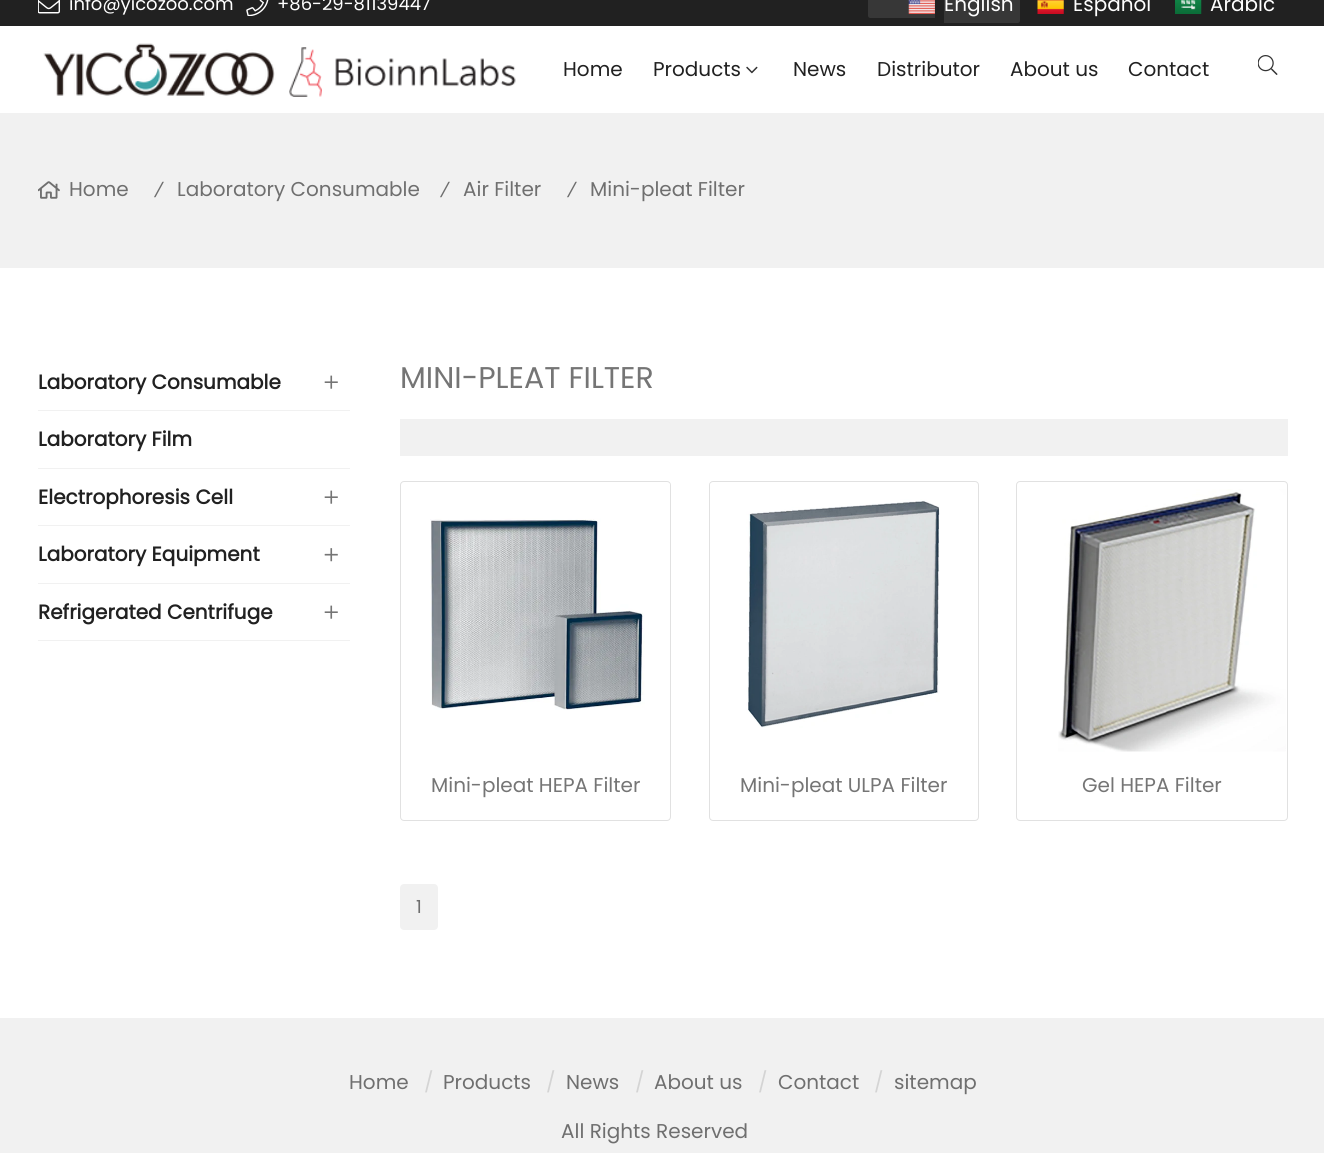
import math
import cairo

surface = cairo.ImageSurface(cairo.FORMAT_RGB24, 1324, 1153)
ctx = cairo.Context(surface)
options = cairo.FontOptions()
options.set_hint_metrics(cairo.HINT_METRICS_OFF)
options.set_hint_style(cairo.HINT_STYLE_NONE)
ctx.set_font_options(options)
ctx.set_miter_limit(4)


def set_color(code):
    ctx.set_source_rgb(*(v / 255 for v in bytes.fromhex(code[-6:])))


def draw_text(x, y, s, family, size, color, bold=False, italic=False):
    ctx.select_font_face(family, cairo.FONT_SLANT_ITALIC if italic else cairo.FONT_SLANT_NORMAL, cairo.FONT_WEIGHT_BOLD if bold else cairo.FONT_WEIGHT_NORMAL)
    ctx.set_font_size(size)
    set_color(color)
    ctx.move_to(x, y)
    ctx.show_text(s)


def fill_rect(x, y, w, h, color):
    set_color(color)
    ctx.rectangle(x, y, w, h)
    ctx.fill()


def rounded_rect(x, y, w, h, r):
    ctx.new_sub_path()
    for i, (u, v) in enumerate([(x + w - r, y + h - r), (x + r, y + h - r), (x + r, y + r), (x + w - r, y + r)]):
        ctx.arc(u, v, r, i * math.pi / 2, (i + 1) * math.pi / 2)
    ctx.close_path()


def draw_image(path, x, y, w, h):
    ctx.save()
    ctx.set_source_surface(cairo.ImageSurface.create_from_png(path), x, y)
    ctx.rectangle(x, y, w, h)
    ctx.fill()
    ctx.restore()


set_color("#ffffff")
ctx.paint()
fill_rect(0, 0, 1324, 26, "#212121")
draw_image("assets/img1.png", 38, 0, 22, 14)
draw_text(69, 10, "info@yicozoo.com", "Poppins", 18, "#ffffff")
draw_image("assets/img2.png", 246, 0, 23, 16)
draw_text(277, 10, "+86-29-81139447", "Poppins", 18, "#ffffff")
set_color("#373737")
ctx.new_path()
ctx.move_to(870.5, -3)
ctx.line_to(935, -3)
ctx.line_to(935, 18)
ctx.line_to(870.5, 18)
ctx.curve_to(869, 18, 868, 17, 868, 15.5)
ctx.line_to(868, -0.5)
ctx.curve_to(868, -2, 869, -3, 870.5, -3)
ctx.close_path()
ctx.fill()
ctx.new_path()
ctx.move_to(944, -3)
ctx.line_to(1017.5, -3)
ctx.curve_to(1019, -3, 1020, -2, 1020, -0.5)
ctx.line_to(1020, 20.5)
ctx.curve_to(1020, 22, 1019, 23, 1017.5, 23)
ctx.line_to(944, 23)
ctx.close_path()
ctx.fill()
draw_image("assets/img3.png", 908, 0, 27, 14)
draw_text(944, 11, "English", "Poppins", 20, "#ffffff")
draw_image("assets/img4.png", 1037, 0, 27, 14)
draw_text(1073, 11, "Español", "Poppins", 20, "#ffffff")
draw_image("assets/img5.png", 1175, 0, 27, 14)
draw_text(1210, 11, "Arabic", "Poppins", 20, "#ffffff")
draw_image("assets/img6.png", 43, 43, 473, 54)
draw_text(563, 76, "Home", "Poppins", 20, "#212121")
draw_text(653, 76, "Products", "Poppins", 20, "#212121")
draw_image("assets/img7.png", 746, 66, 12, 8)
draw_text(793, 76, "News", "Poppins", 20, "#212121")
draw_text(877, 76, "Distributor", "Poppins", 20, "#212121")
draw_text(1010, 76, "About us", "Poppins", 20, "#212121")
draw_text(1128, 76, "Contact", "Poppins", 20, "#212121")
draw_image("assets/img8.png", 1258, 55, 20, 20)
fill_rect(0, 113, 1324, 155, "#f1f1f1")
draw_image("assets/img9.png", 38, 181, 22, 18)
draw_text(69, 196, "Home", "Poppins", 20, "#6f6f6f")
draw_text(155, 196, "/", "Roboto", 20, "#6f6f6f", italic=True)
draw_text(177, 196, "Laboratory Consumable", "Poppins", 20, "#6f6f6f")
draw_text(441, 196, "/", "Roboto", 20, "#6f6f6f", italic=True)
draw_text(463, 196, "Air Filter", "Poppins", 20, "#6f6f6f")
draw_text(568, 196, "/", "Roboto", 20, "#6f6f6f", italic=True)
draw_text(590, 196, "Mini-pleat Filter", "Poppins", 20, "#6f6f6f")
fill_rect(38, 410, 312, 1, "#f1f1f1")
draw_text(38, 389, "Laboratory Consumable", "Poppins", 20, "#212121", bold=True)
draw_image("assets/img10.png", 324, 375, 14, 14)
fill_rect(38, 468, 312, 1, "#f1f1f1")
draw_text(38, 446, "Laboratory Film", "Poppins", 20, "#212121", bold=True)
fill_rect(38, 525, 312, 1, "#f1f1f1")
draw_text(38, 504, "Electrophoresis Cell", "Poppins", 20, "#212121", bold=True)
draw_image("assets/img10.png", 324, 490, 14, 14)
fill_rect(38, 583, 312, 1, "#f1f1f1")
draw_text(38, 561, "Laboratory Equipment", "Poppins", 20, "#212121", bold=True)
draw_image("assets/img11.png", 324, 548, 14, 14)
fill_rect(38, 640, 312, 1, "#f1f1f1")
draw_text(38, 619, "Refrigerated Centrifuge", "Poppins", 20, "#212121", bold=True)
draw_image("assets/img10.png", 324, 605, 14, 14)
draw_text(400, 388, "MINI-PLEAT FILTER", "Poppins", 30, "#757575")
fill_rect(400, 419, 888, 37, "#f1f1f1")
rounded_rect(400.5, 481.5, 270, 339, 3.5)
set_color("#e1e1e1")
ctx.set_line_width(1)
ctx.stroke()
draw_image("assets/img12.png", 430, 483, 240, 227)
draw_text(431, 792, "Mini-pleat HEPA Filter", "Poppins", 20, "#757575")
rounded_rect(709.5, 481.5, 269, 339, 3.5)
set_color("#e1e1e1")
ctx.stroke()
draw_image("assets/img13.png", 710, 483, 230, 245)
draw_text(740, 792, "Mini-pleat ULPA Filter", "Poppins", 20, "#757575")
rounded_rect(1016.5, 481.5, 271, 339, 3.5)
set_color("#e1e1e1")
ctx.stroke()
draw_image("assets/img14.png", 1058, 489, 228, 263)
draw_text(1082, 792, "Gel HEPA Filter", "Poppins", 20, "#757575")
set_color("#f1f1f1")
rounded_rect(400, 884, 38, 46, 4)
ctx.fill()
draw_text(416, 913, "1", "Poppins", 18, "#6f6f6f")
fill_rect(0, 1018, 1324, 135, "#f1f1f1")
draw_text(349, 1089, "Home", "Poppins", 20, "#6f6f6f")
draw_text(424, 1089, "/", "Poppins", 20, "#d4d4d4")
draw_text(443, 1089, "Products", "Poppins", 20, "#6f6f6f")
draw_text(546, 1089, "/", "Poppins", 20, "#d4d4d4")
draw_text(566, 1089, "News", "Poppins", 20, "#6f6f6f")
draw_text(635, 1089, "/", "Poppins", 20, "#d4d4d4")
draw_text(654, 1089, "About us", "Poppins", 20, "#6f6f6f")
draw_text(758, 1089, "/", "Poppins", 20, "#d4d4d4")
draw_text(778, 1089, "Contact", "Poppins", 20, "#6f6f6f")
draw_text(874, 1089, "/", "Poppins", 20, "#d4d4d4")
draw_text(894, 1089, "sitemap", "Poppins", 20, "#6f6f6f")
draw_text(561, 1138, "All Rights Reserved", "Poppins", 20, "#6f6f6f")
surface.write_to_png("output.png")
